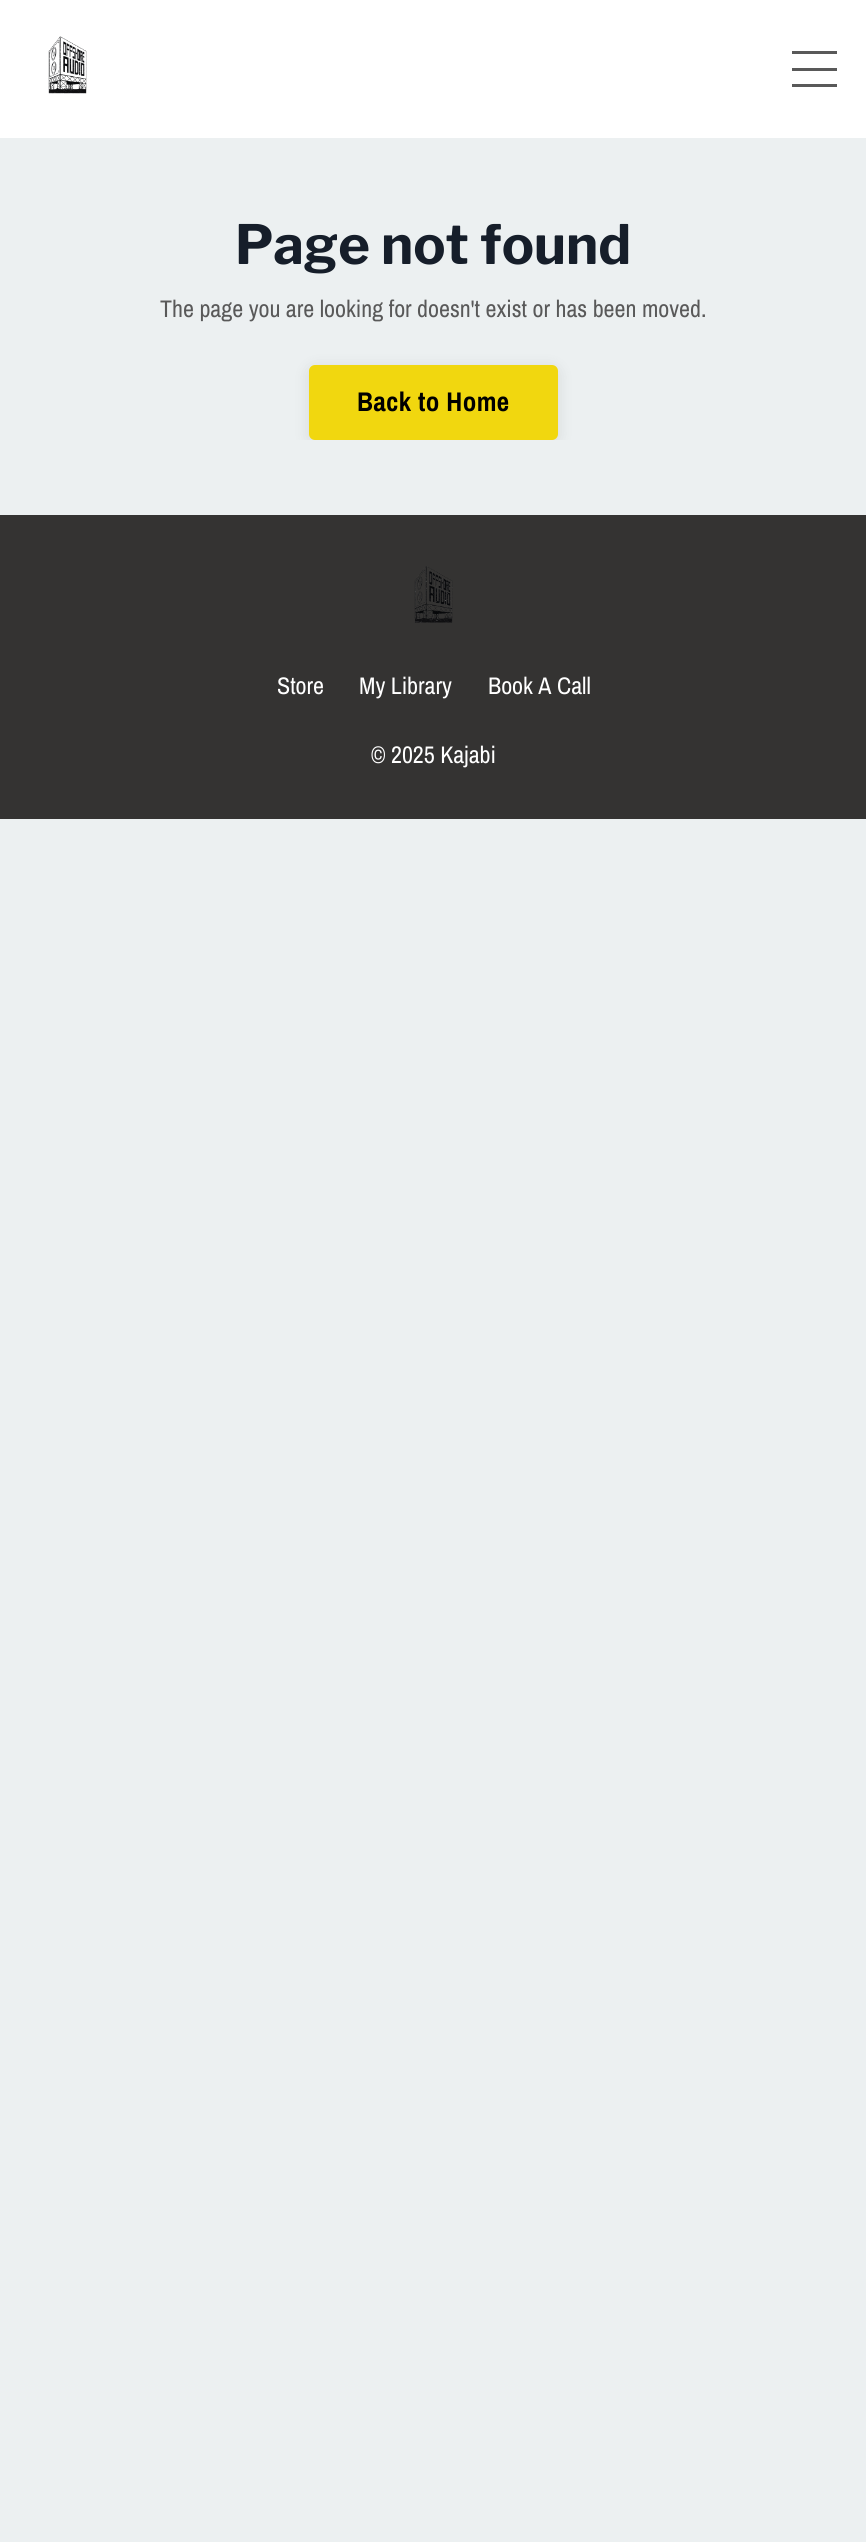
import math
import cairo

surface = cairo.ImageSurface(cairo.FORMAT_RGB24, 866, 2542)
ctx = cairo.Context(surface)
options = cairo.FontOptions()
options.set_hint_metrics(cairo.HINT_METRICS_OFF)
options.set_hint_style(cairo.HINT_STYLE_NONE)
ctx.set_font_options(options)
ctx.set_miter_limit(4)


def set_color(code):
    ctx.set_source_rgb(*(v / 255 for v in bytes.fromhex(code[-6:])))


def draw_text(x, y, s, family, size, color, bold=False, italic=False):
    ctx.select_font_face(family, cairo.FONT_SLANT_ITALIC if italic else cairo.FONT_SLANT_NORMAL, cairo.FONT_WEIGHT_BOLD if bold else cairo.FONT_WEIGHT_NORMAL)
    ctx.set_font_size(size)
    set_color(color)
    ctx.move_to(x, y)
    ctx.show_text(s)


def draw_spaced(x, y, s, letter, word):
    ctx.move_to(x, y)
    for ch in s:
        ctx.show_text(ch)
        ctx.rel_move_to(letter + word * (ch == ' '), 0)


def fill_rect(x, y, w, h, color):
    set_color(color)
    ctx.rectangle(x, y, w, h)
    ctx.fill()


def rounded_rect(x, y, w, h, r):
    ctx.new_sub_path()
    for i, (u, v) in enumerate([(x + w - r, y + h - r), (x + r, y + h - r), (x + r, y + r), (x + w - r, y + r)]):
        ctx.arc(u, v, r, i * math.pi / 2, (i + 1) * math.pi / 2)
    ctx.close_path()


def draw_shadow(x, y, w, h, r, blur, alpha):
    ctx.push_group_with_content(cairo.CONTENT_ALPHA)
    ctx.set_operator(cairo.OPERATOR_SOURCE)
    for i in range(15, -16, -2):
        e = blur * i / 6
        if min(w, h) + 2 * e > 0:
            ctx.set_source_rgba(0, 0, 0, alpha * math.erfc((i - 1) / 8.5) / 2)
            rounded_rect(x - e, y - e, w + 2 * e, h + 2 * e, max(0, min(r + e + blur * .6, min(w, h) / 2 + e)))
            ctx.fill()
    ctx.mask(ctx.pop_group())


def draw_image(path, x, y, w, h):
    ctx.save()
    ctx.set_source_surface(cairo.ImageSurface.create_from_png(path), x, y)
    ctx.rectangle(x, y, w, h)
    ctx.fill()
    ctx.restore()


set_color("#ecf0f1")
ctx.paint()
fill_rect(0, 0, 866, 138, "#ffffff")
draw_image("assets/img1.png", 48, 36, 39, 58)
fill_rect(792, 51, 45, 3, "#595959")
fill_rect(792, 68, 45, 3, "#595959")
fill_rect(792, 84, 45, 3, "#595959")
draw_text(235, 264, "Page not found", "Libre Franklin", 54, "#161e2a", bold=True)
draw_text(160, 317, "The page you are looking for doesn't exist or has been moved.", "Archivo Narrow", 24, "#595959")
ctx.save()
rounded_rect(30, 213, 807, 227, 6)
ctx.clip()
set_color("#000000")
draw_shadow(309, 368, 249, 75, 6, 7.5, 0.1)
ctx.restore()
set_color("#f1d70f")
rounded_rect(310.5, 366.5, 246, 72, 4.5)
ctx.fill_preserve()
ctx.set_line_width(3)
ctx.stroke()
ctx.select_font_face("Archivo Narrow", cairo.FONT_SLANT_NORMAL, cairo.FONT_WEIGHT_BOLD)
ctx.set_font_size(27)
set_color("#000000")
draw_spaced(357, 411, "Back to Home", 0.4, 0)
fill_rect(0, 515, 866, 304, "#343332")
draw_image("assets/img2.png", 414, 566, 39, 57)
draw_text(277, 694, "Store", "Archivo Narrow", 24, "#ffffff")
draw_text(359, 694, "My Library", "Archivo Narrow", 24, "#ffffff")
draw_text(488, 694, "Book A Call", "Archivo Narrow", 24, "#ffffff")
draw_text(371, 763, "© 2025 Kajabi", "Archivo Narrow", 24, "#ffffff")
surface.write_to_png("output.png")
